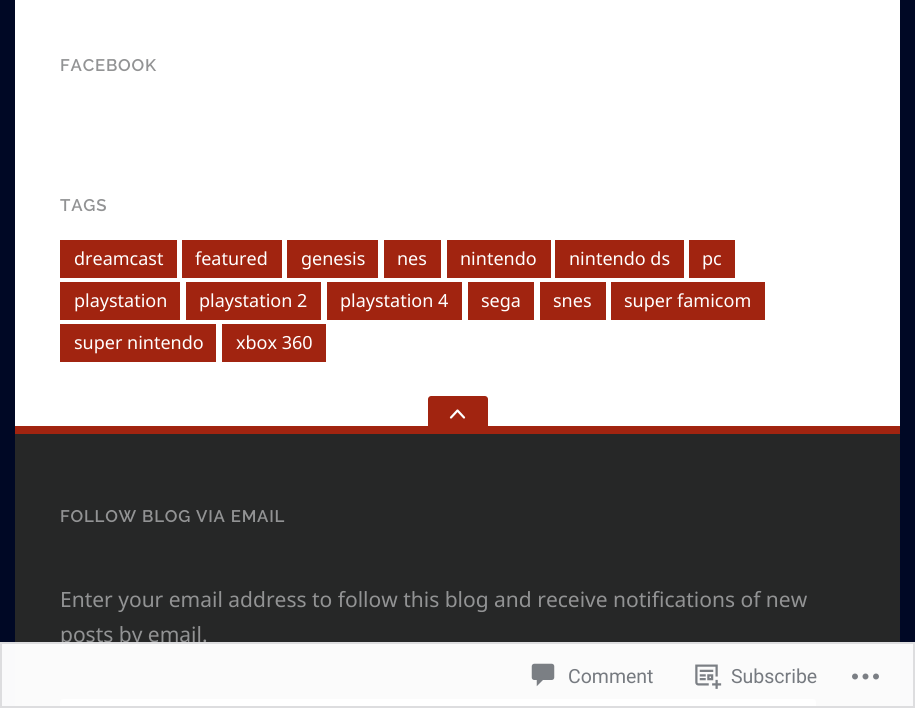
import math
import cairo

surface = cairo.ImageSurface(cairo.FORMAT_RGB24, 915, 708)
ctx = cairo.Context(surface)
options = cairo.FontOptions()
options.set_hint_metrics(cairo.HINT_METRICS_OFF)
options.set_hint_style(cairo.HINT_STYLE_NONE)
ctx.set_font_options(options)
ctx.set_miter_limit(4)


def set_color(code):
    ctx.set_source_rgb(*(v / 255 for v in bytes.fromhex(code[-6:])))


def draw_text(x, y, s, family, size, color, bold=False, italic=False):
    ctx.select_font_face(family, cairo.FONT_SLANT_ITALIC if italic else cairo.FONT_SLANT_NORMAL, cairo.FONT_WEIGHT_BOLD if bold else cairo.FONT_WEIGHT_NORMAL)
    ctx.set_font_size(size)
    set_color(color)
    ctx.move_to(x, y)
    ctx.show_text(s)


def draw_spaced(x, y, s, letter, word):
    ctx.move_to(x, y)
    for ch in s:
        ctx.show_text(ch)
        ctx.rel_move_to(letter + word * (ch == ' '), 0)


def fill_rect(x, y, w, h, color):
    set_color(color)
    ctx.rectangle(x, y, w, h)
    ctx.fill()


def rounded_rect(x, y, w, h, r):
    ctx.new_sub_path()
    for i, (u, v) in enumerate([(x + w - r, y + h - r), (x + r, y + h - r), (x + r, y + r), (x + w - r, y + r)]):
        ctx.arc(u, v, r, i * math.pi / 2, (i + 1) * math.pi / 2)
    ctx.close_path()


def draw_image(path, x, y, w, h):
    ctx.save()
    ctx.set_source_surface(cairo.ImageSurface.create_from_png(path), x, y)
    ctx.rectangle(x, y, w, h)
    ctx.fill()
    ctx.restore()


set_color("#000825")
ctx.paint()
fill_rect(15, 0, 885, 426, "#ffffff")
ctx.select_font_face("Raleway Thin")
ctx.set_font_size(16.8)
set_color("#929394")
draw_spaced(60, 71, "FACEBOOK", 0.8, 0)
draw_spaced(60, 211, "TAGS", 0.8, 0)
fill_rect(60, 240, 117, 38, "#a12410")
draw_text(74, 265, "dreamcast", "Noto Sans", 18, "#ffffff")
fill_rect(182, 240, 100, 38, "#a12410")
draw_text(195, 265, "featured", "Noto Sans", 18, "#ffffff")
fill_rect(287, 240, 91, 38, "#a12410")
draw_text(301, 265, "genesis", "Noto Sans", 18, "#ffffff")
fill_rect(384, 240, 57, 38, "#a12410")
draw_text(397, 265, "nes", "Noto Sans", 18, "#ffffff")
fill_rect(447, 240, 104, 38, "#a12410")
draw_text(460, 265, "nintendo", "Noto Sans", 18, "#ffffff")
fill_rect(555, 240, 129, 38, "#a12410")
draw_text(569, 265, "nintendo ds", "Noto Sans", 18, "#ffffff")
fill_rect(689, 240, 46, 38, "#a12410")
draw_text(702, 265, "pc", "Noto Sans", 18, "#ffffff")
fill_rect(60, 282, 120, 38, "#a12410")
draw_text(74, 307, "playstation", "Noto Sans", 18, "#ffffff")
fill_rect(186, 282, 135, 38, "#a12410")
draw_text(199, 307, "playstation 2", "Noto Sans", 18, "#ffffff")
fill_rect(327, 282, 135, 38, "#a12410")
draw_text(340, 307, "playstation 4", "Noto Sans", 18, "#ffffff")
fill_rect(468, 282, 66, 38, "#a12410")
draw_text(481, 307, "sega", "Noto Sans", 18, "#ffffff")
fill_rect(540, 282, 66, 38, "#a12410")
draw_text(553, 307, "snes", "Noto Sans", 18, "#ffffff")
fill_rect(611, 282, 154, 38, "#a12410")
draw_text(624, 307, "super famicom", "Noto Sans", 18, "#ffffff")
fill_rect(60, 324, 156, 38, "#a12410")
draw_text(74, 349, "super nintendo", "Noto Sans", 18, "#ffffff")
fill_rect(222, 324, 104, 38, "#a12410")
draw_text(236, 349, "xbox 360", "Noto Sans", 18, "#ffffff")
fill_rect(15, 434, 885, 274, "#262727")
fill_rect(15, 426, 885, 8, "#a12410")
ctx.new_path()
ctx.move_to(431, 396)
ctx.line_to(485, 396)
ctx.curve_to(486.5, 396, 488, 397.5, 488, 399)
ctx.line_to(488, 434)
ctx.line_to(428, 434)
ctx.line_to(428, 399)
ctx.curve_to(428, 397.5, 429.5, 396, 431, 396)
ctx.close_path()
ctx.fill()
ctx.new_path()
ctx.move_to(464, 417.5)
ctx.line_to(457.5, 410.5)
ctx.line_to(451, 417.5)
set_color("#ffffff")
ctx.set_line_width(2.2)
ctx.set_line_cap(cairo.LINE_CAP_ROUND)
ctx.set_line_join(cairo.LINE_JOIN_ROUND)
ctx.stroke()
ctx.select_font_face("Raleway Thin")
ctx.set_font_size(16.8)
set_color("#929394")
draw_spaced(60, 522, "FOLLOW BLOG VIA EMAIL", 0.8, 0)
draw_text(60, 607, "Enter your email address to follow this blog and receive notifications of new", "Noto Sans", 21, "#929394")
draw_text(60, 642, "posts by email.", "Noto Sans", 21, "#929394")
set_color("#fafafa")
rounded_rect(61, 700, 754, 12, 2)
ctx.fill_preserve()
set_color("#ebecee")
ctx.set_line_width(2)
ctx.set_line_cap(cairo.LINE_CAP_BUTT)
ctx.set_line_join(cairo.LINE_JOIN_MITER)
ctx.stroke()
ctx.set_source_rgba(1, 1, 1, 0.98)
ctx.rectangle(0, 642, 915, 66)
ctx.fill()
ctx.rectangle(1, 643, 913, 64)
ctx.set_source_rgba(0.863, 0.863, 0.871, 0.98)
ctx.stroke()
draw_image("assets/img1.png", 531, 663, 24, 24)
draw_text(568, 683, "Comment", "Roboto", 19.5, "#767a80")
draw_image("assets/img2.png", 695, 664, 27, 25)
draw_text(731, 683, "Subscribe", "Roboto", 19.5, "#767a80")
draw_image("assets/img3.png", 852, 673, 27, 7)
surface.write_to_png("output.png")
